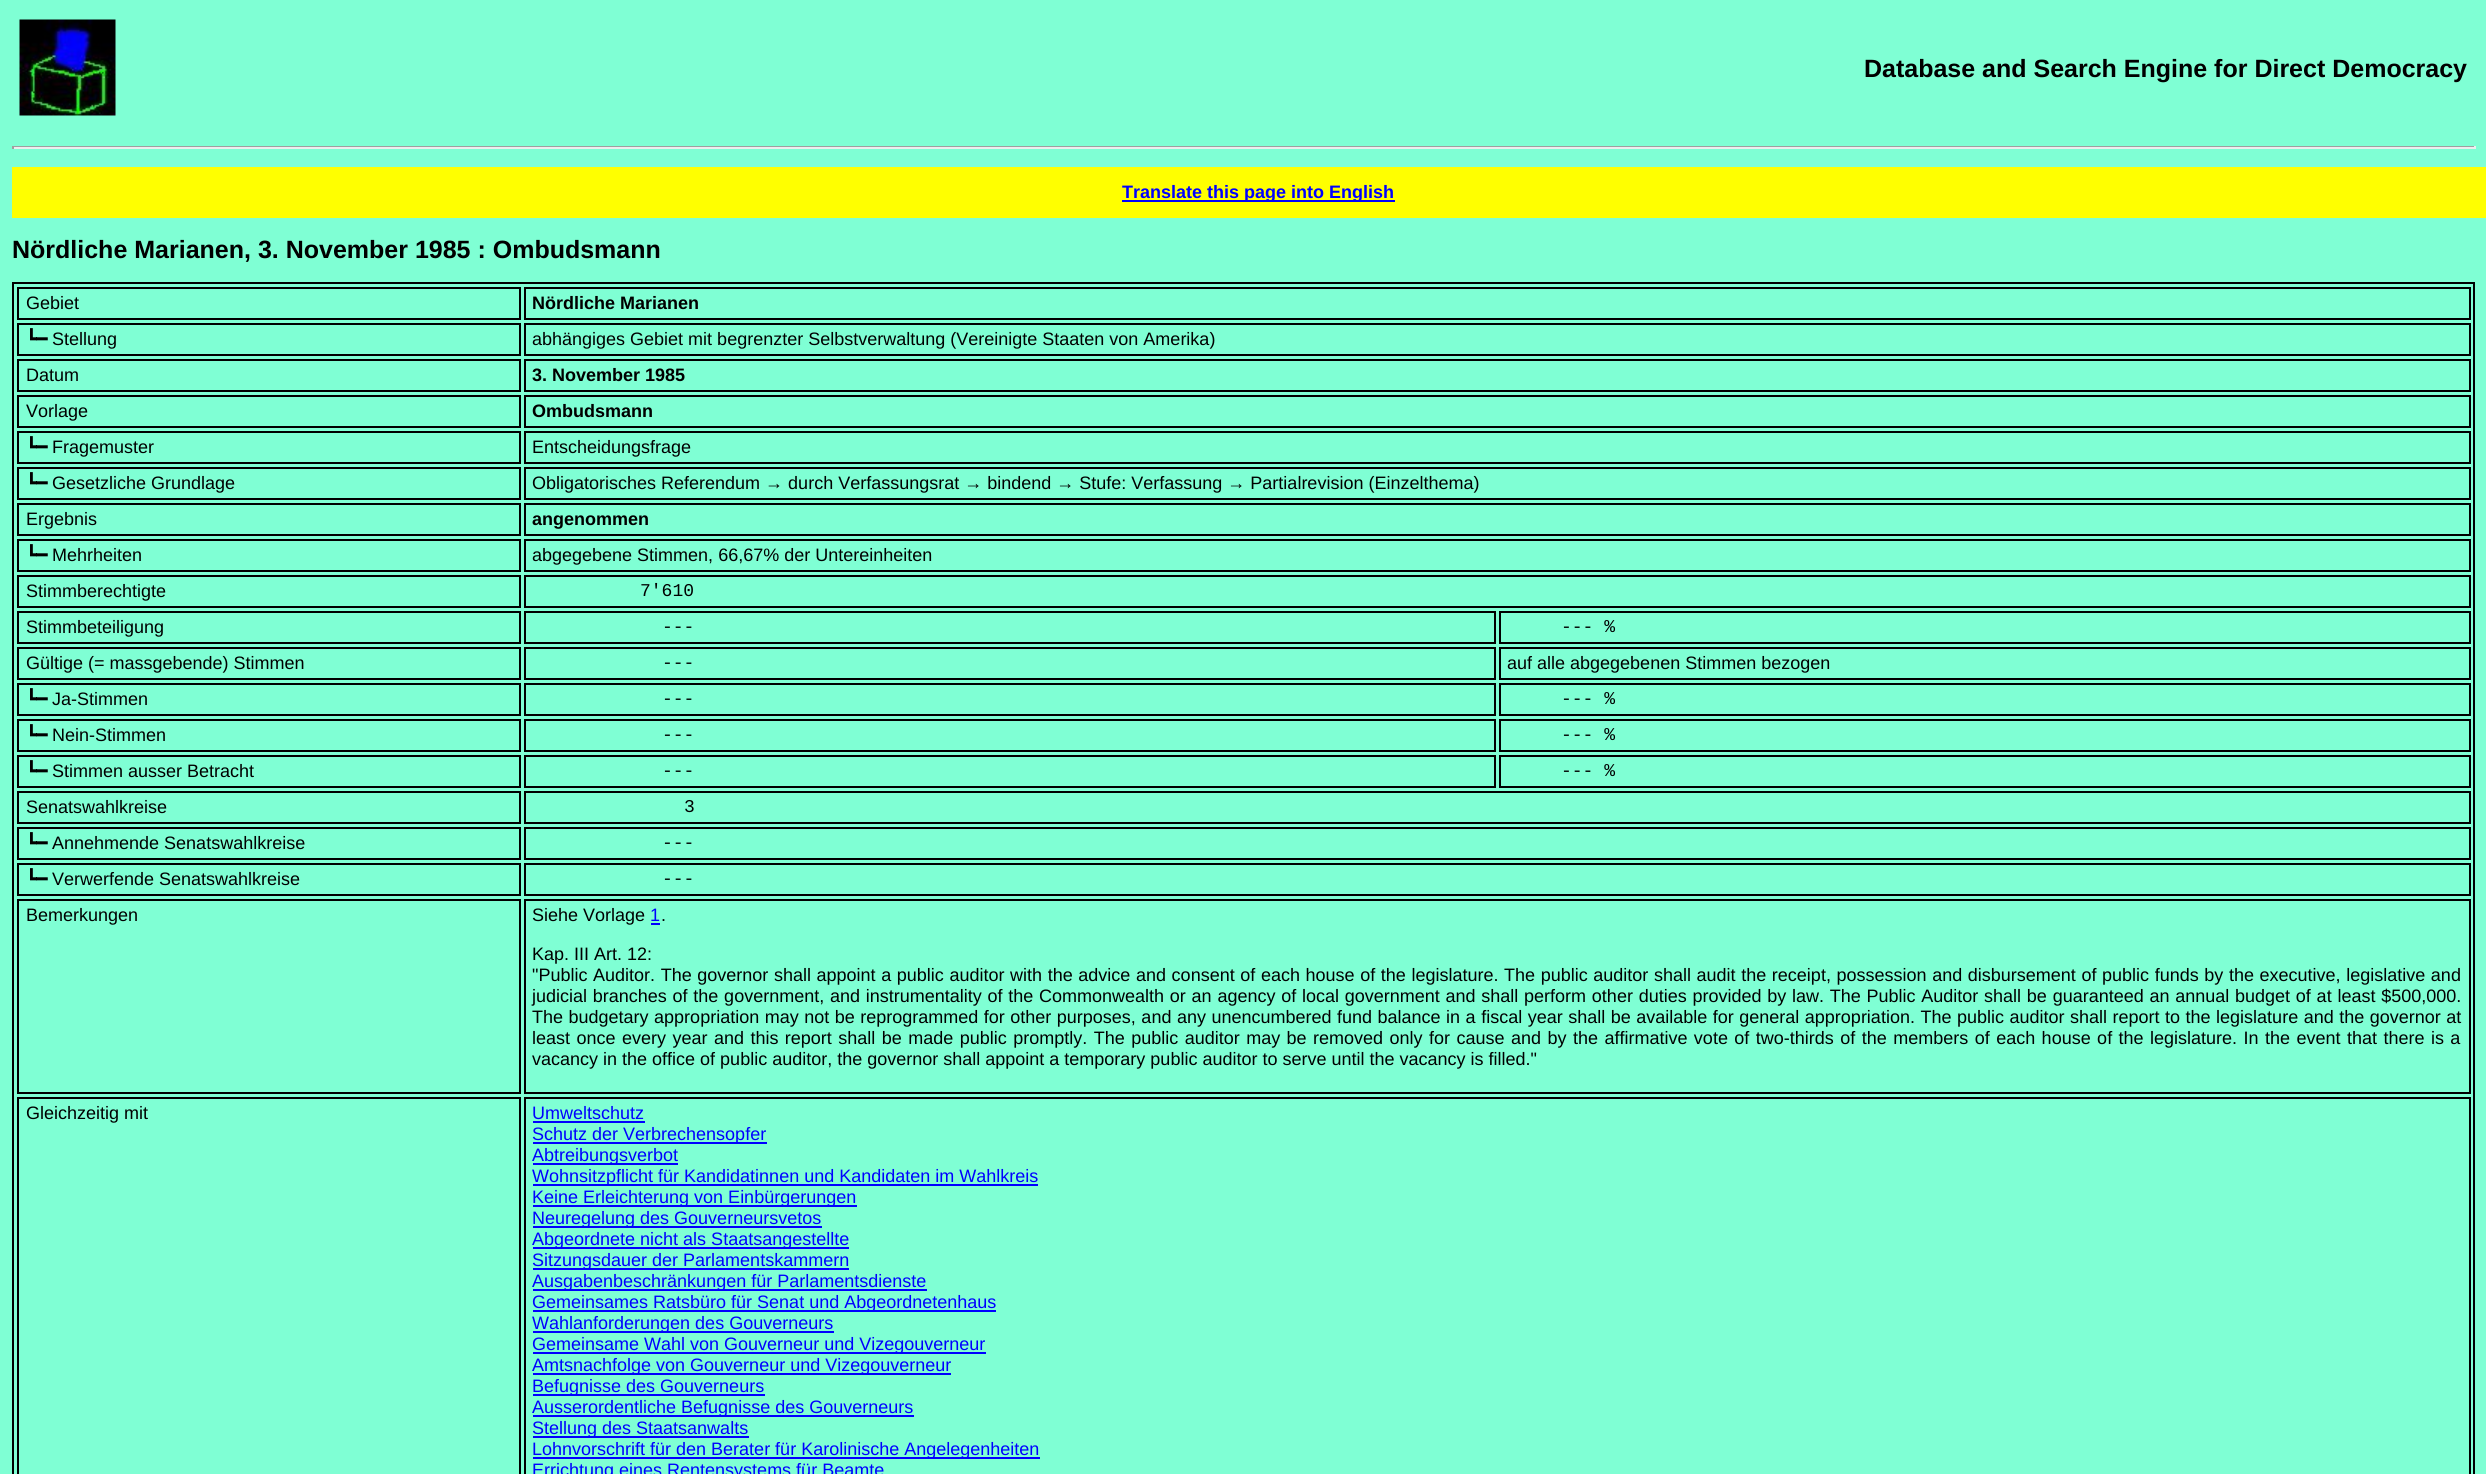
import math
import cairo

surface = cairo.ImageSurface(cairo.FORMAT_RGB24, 2486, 1474)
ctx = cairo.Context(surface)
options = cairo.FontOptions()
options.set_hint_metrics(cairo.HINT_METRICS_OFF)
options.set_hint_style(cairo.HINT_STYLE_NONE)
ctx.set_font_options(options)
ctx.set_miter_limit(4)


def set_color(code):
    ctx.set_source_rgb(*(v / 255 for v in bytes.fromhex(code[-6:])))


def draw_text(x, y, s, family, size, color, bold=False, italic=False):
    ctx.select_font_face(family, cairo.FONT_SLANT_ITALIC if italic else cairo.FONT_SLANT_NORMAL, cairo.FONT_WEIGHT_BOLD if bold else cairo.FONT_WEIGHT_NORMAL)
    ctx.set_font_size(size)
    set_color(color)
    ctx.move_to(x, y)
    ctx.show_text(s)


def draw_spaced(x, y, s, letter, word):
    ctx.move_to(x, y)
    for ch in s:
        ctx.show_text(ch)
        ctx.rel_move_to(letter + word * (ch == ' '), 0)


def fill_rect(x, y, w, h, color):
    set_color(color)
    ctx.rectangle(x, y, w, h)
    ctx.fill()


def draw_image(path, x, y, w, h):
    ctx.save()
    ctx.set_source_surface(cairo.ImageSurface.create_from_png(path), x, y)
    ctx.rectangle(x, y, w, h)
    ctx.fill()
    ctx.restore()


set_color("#7fffd4")
ctx.paint()
draw_image("assets/img1.png", 19, 19, 97, 97)
draw_text(1864, 77, "Database and Search Engine for Direct Democracy", "Liberation Sans", 25, "#000000", bold=True)
fill_rect(12, 146, 2463, 1, "#9f9f9f")
fill_rect(2474, 146, 2, 3, "#eeeeee")
fill_rect(12, 147, 2463, 2, "#eeeeee")
fill_rect(12, 146, 2, 3, "#9f9f9f")
fill_rect(12, 167, 2474, 51, "#ffff00")
fill_rect(1122, 200, 273, 2, "#0000ff")
draw_text(1122, 198, "Translate this page into English", "Liberation Sans", 18, "#0000ff", bold=True)
draw_text(12, 258, "Nördliche Marianen, 3. November 1985 : Ombudsmann", "Liberation Sans", 25, "#000000", bold=True)
ctx.rectangle(13, 283, 2461, 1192)
ctx.stroke()
ctx.rectangle(18, 288, 502, 31)
ctx.stroke()
draw_text(26, 309, "Gebiet", "Liberation Sans", 18, "#000000")
ctx.rectangle(525, 288, 1945, 31)
ctx.stroke()
draw_text(532, 309, "Nördliche Marianen", "Liberation Sans", 18, "#000000", bold=True)
ctx.rectangle(18, 324, 502, 31)
ctx.stroke()
draw_text(26, 345, "┗━", "DejaVu Sans", 18, "#000000")
draw_text(52, 345, "Stellung", "Liberation Sans", 18, "#000000")
ctx.rectangle(525, 324, 1945, 31)
ctx.stroke()
draw_text(532, 345, "abhängiges Gebiet mit begrenzter Selbstverwaltung (Vereinigte Staaten von Amerika)", "Liberation Sans", 18, "#000000")
ctx.rectangle(18, 360, 502, 31)
ctx.stroke()
draw_text(26, 381, "Datum", "Liberation Sans", 18, "#000000")
ctx.rectangle(525, 360, 1945, 31)
ctx.stroke()
draw_text(532, 381, "3. November 1985", "Liberation Sans", 18, "#000000", bold=True)
ctx.rectangle(18, 396, 502, 31)
ctx.stroke()
draw_text(26, 417, "Vorlage", "Liberation Sans", 18, "#000000")
ctx.rectangle(525, 396, 1945, 31)
ctx.stroke()
draw_text(532, 417, "Ombudsmann", "Liberation Sans", 18, "#000000", bold=True)
ctx.rectangle(18, 432, 502, 31)
ctx.stroke()
draw_text(26, 453, "┗━", "DejaVu Sans", 18, "#000000")
draw_text(52, 453, "Fragemuster", "Liberation Sans", 18, "#000000")
ctx.rectangle(525, 432, 1945, 31)
ctx.stroke()
draw_text(532, 453, "Entscheidungsfrage", "Liberation Sans", 18, "#000000")
ctx.rectangle(18, 468, 502, 31)
ctx.stroke()
draw_text(26, 489, "┗━", "DejaVu Sans", 18, "#000000")
draw_text(52, 489, "Gesetzliche Grundlage", "Liberation Sans", 18, "#000000")
ctx.rectangle(525, 468, 1945, 31)
ctx.stroke()
draw_text(532, 489, "Obligatorisches Referendum → durch Verfassungsrat → bindend → Stufe: Verfassung → Partialrevision (Einzelthema)", "Liberation Sans", 18, "#000000")
ctx.rectangle(18, 504, 502, 31)
ctx.stroke()
draw_text(26, 525, "Ergebnis", "Liberation Sans", 18, "#000000")
ctx.rectangle(525, 504, 1945, 31)
ctx.stroke()
draw_text(532, 525, "angenommen", "Liberation Sans", 18, "#000000", bold=True)
ctx.rectangle(18, 540, 502, 31)
ctx.stroke()
draw_text(26, 561, "┗━", "DejaVu Sans", 18, "#000000")
draw_text(52, 561, "Mehrheiten", "Liberation Sans", 18, "#000000")
ctx.rectangle(525, 540, 1945, 31)
ctx.stroke()
draw_text(532, 561, "abgegebene Stimmen, 66,67% der Untereinheiten", "Liberation Sans", 18, "#000000")
ctx.rectangle(18, 576, 502, 31)
ctx.stroke()
draw_text(26, 597, "Stimmberechtigte", "Liberation Sans", 18, "#000000")
ctx.rectangle(525, 576, 1945, 31)
ctx.stroke()
draw_text(640, 596, "7'610", "Liberation Mono", 18, "#000000")
ctx.rectangle(18, 612, 502, 31)
ctx.stroke()
draw_text(26, 633, "Stimmbeteiligung", "Liberation Sans", 18, "#000000")
ctx.rectangle(525, 612, 970, 31)
ctx.stroke()
draw_text(662, 632, "---", "Liberation Mono", 18, "#000000")
ctx.rectangle(1500, 612, 970, 31)
ctx.stroke()
draw_text(1561, 632, "--- %", "Liberation Mono", 18, "#000000")
ctx.rectangle(18, 648, 502, 31)
ctx.stroke()
draw_text(26, 669, "Gültige (= massgebende) Stimmen", "Liberation Sans", 18, "#000000")
ctx.rectangle(525, 648, 970, 31)
ctx.stroke()
draw_text(662, 668, "---", "Liberation Mono", 18, "#000000")
ctx.rectangle(1500, 648, 970, 31)
ctx.stroke()
draw_text(1507, 669, "auf alle abgegebenen Stimmen bezogen", "Liberation Sans", 18, "#000000")
ctx.rectangle(18, 684, 502, 31)
ctx.stroke()
draw_text(26, 705, "┗━", "DejaVu Sans", 18, "#000000")
draw_text(52, 705, "Ja-Stimmen", "Liberation Sans", 18, "#000000")
ctx.rectangle(525, 684, 970, 31)
ctx.stroke()
draw_text(662, 704, "---", "Liberation Mono", 18, "#000000")
ctx.rectangle(1500, 684, 970, 31)
ctx.stroke()
draw_text(1561, 704, "--- %", "Liberation Mono", 18, "#000000")
ctx.rectangle(18, 720, 502, 31)
ctx.stroke()
draw_text(26, 741, "┗━", "DejaVu Sans", 18, "#000000")
draw_text(52, 741, "Nein-Stimmen", "Liberation Sans", 18, "#000000")
ctx.rectangle(525, 720, 970, 31)
ctx.stroke()
draw_text(662, 740, "---", "Liberation Mono", 18, "#000000")
ctx.rectangle(1500, 720, 970, 31)
ctx.stroke()
draw_text(1561, 740, "--- %", "Liberation Mono", 18, "#000000")
ctx.rectangle(18, 756, 502, 31)
ctx.stroke()
draw_text(26, 777, "┗━", "DejaVu Sans", 18, "#000000")
draw_text(52, 777, "Stimmen ausser Betracht", "Liberation Sans", 18, "#000000")
ctx.rectangle(525, 756, 970, 31)
ctx.stroke()
draw_text(662, 776, "---", "Liberation Mono", 18, "#000000")
ctx.rectangle(1500, 756, 970, 31)
ctx.stroke()
draw_text(1561, 776, "--- %", "Liberation Mono", 18, "#000000")
ctx.rectangle(18, 792, 502, 31)
ctx.stroke()
draw_text(26, 813, "Senatswahlkreise", "Liberation Sans", 18, "#000000")
ctx.rectangle(525, 792, 1945, 31)
ctx.stroke()
draw_text(684, 812, "3", "Liberation Mono", 18, "#000000")
ctx.rectangle(18, 828, 502, 31)
ctx.stroke()
draw_text(26, 849, "┗━", "DejaVu Sans", 18, "#000000")
draw_text(52, 849, "Annehmende Senatswahlkreise", "Liberation Sans", 18, "#000000")
ctx.rectangle(525, 828, 1945, 31)
ctx.stroke()
draw_text(662, 848, "---", "Liberation Mono", 18, "#000000")
ctx.rectangle(18, 864, 502, 31)
ctx.stroke()
draw_text(26, 885, "┗━", "DejaVu Sans", 18, "#000000")
draw_text(52, 885, "Verwerfende Senatswahlkreise", "Liberation Sans", 18, "#000000")
ctx.rectangle(525, 864, 1945, 31)
ctx.stroke()
draw_text(662, 884, "---", "Liberation Mono", 18, "#000000")
ctx.rectangle(18, 900, 502, 193)
ctx.stroke()
draw_text(26, 921, "Bemerkungen", "Liberation Sans", 18, "#000000")
ctx.rectangle(525, 900, 1945, 193)
ctx.stroke()
draw_text(532, 921, "Siehe Vorlage", "Liberation Sans", 18, "#000000")
draw_text(650, 921, "1", "Liberation Sans", 18, "#0000ff")
fill_rect(651, 923, 9, 2, "#0000ff")
draw_text(661, 921, ".", "Liberation Sans", 18, "#000000")
draw_text(532, 960, "Kap. III Art. 12:", "Liberation Sans", 18, "#000000")
draw_spaced(532, 981, "\"Public Auditor. The governor shall appoint a public auditor with the advice and consent of each house of the legislature. The public auditor shall audit the receipt, possession and disbursement of public funds by the executive, legislative and", 0, 0.6)
draw_spaced(532, 1002, "judicial branches of the government, and instrumentality of the Commonwealth or an agency of local government and shall perform other duties provided by law. The Public Auditor shall be guaranteed an annual budget of at least $500,000.", 0, 0.75)
draw_spaced(532, 1023, "The budgetary appropriation may not be reprogrammed for other purposes, and any unencumbered fund balance in a fiscal year shall be available for general appropriation. The public auditor shall report to the legislature and the governor at", 0, 0.5)
draw_spaced(532, 1044, "least once every year and this report shall be made public promptly. The public auditor may be removed only for cause and by the affirmative vote of two-thirds of the members of each house of the legislature. In the event that there is a", 0, 1.45)
draw_text(532, 1065, "vacancy in the office of public auditor, the governor shall appoint a temporary public auditor to serve until the vacancy is filled.\"", "Liberation Sans", 18, "#000000")
ctx.rectangle(18, 1098, 502, 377)
ctx.stroke()
draw_text(26, 1119, "Gleichzeitig mit", "Liberation Sans", 18, "#000000")
ctx.rectangle(525, 1098, 1945, 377)
ctx.stroke()
draw_text(532, 1119, "Umweltschutz", "Liberation Sans", 18, "#0000ff")
fill_rect(533, 1121, 112, 2, "#0000ff")
fill_rect(533, 1142, 234, 2, "#0000ff")
draw_text(532, 1140, "Schutz der Verbrechensopfer", "Liberation Sans", 18, "#0000ff")
fill_rect(533, 1163, 145, 2, "#0000ff")
draw_text(532, 1161, "Abtreibungsverbot", "Liberation Sans", 18, "#0000ff")
fill_rect(533, 1184, 505, 2, "#0000ff")
draw_text(532, 1182, "Wohnsitzpflicht für Kandidatinnen und Kandidaten im Wahlkreis", "Liberation Sans", 18, "#0000ff")
fill_rect(533, 1205, 324, 2, "#0000ff")
draw_text(532, 1203, "Keine Erleichterung von Einbürgerungen", "Liberation Sans", 18, "#0000ff")
fill_rect(533, 1226, 289, 2, "#0000ff")
draw_text(532, 1224, "Neuregelung des Gouverneursvetos", "Liberation Sans", 18, "#0000ff")
fill_rect(533, 1247, 316, 2, "#0000ff")
draw_text(532, 1245, "Abgeordnete nicht als Staatsangestellte", "Liberation Sans", 18, "#0000ff")
fill_rect(533, 1268, 316, 2, "#0000ff")
draw_text(532, 1266, "Sitzungsdauer der Parlamentskammern", "Liberation Sans", 18, "#0000ff")
fill_rect(533, 1289, 394, 2, "#0000ff")
draw_text(532, 1287, "Ausgabenbeschränkungen für Parlamentsdienste", "Liberation Sans", 18, "#0000ff")
fill_rect(533, 1310, 463, 2, "#0000ff")
draw_text(532, 1308, "Gemeinsames Ratsbüro für Senat und Abgeordnetenhaus", "Liberation Sans", 18, "#0000ff")
fill_rect(533, 1331, 301, 2, "#0000ff")
draw_text(532, 1329, "Wahlanforderungen des Gouverneurs", "Liberation Sans", 18, "#0000ff")
fill_rect(533, 1352, 453, 2, "#0000ff")
draw_text(532, 1350, "Gemeinsame Wahl von Gouverneur und Vizegouverneur", "Liberation Sans", 18, "#0000ff")
fill_rect(533, 1373, 418, 2, "#0000ff")
draw_text(532, 1371, "Amtsnachfolge von Gouverneur und Vizegouverneur", "Liberation Sans", 18, "#0000ff")
fill_rect(533, 1394, 232, 2, "#0000ff")
draw_text(532, 1392, "Befugnisse des Gouverneurs", "Liberation Sans", 18, "#0000ff")
fill_rect(533, 1415, 381, 2, "#0000ff")
draw_text(532, 1413, "Ausserordentliche Befugnisse des Gouverneurs", "Liberation Sans", 18, "#0000ff")
fill_rect(533, 1436, 216, 2, "#0000ff")
draw_text(532, 1434, "Stellung des Staatsanwalts", "Liberation Sans", 18, "#0000ff")
fill_rect(533, 1457, 507, 2, "#0000ff")
draw_text(532, 1455, "Lohnvorschrift für den Berater für Karolinische Angelegenheiten", "Liberation Sans", 18, "#0000ff")
draw_text(532, 1476, "Errichtung eines Rentensystems für Beamte", "Liberation Sans", 18, "#0000ff")
surface.write_to_png("output.png")
